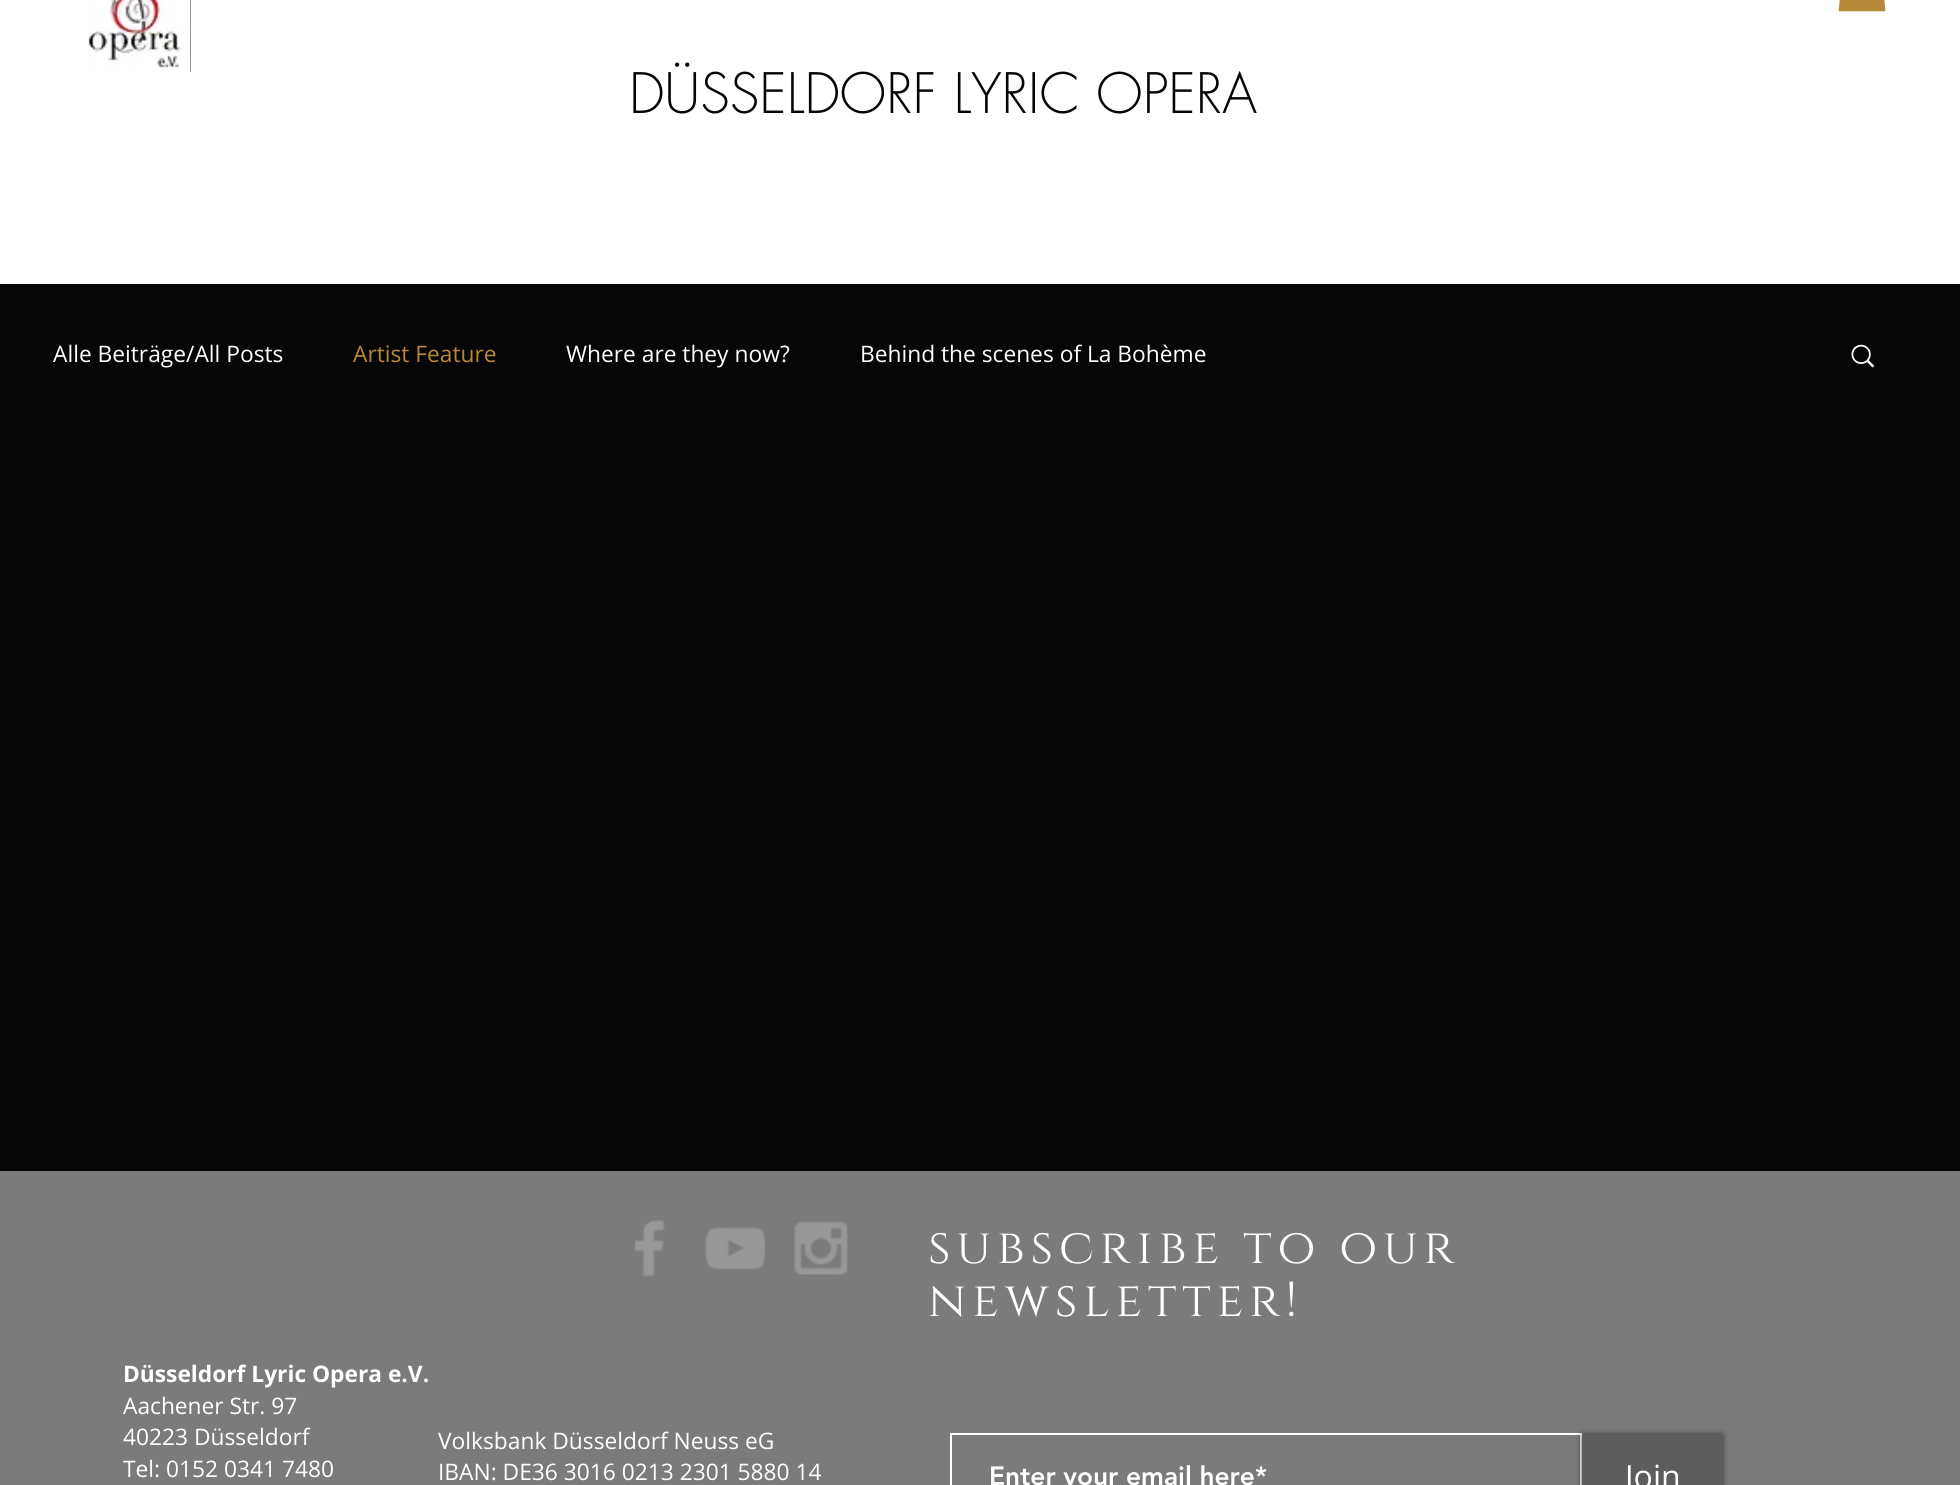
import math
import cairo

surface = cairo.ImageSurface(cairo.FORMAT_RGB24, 1960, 1485)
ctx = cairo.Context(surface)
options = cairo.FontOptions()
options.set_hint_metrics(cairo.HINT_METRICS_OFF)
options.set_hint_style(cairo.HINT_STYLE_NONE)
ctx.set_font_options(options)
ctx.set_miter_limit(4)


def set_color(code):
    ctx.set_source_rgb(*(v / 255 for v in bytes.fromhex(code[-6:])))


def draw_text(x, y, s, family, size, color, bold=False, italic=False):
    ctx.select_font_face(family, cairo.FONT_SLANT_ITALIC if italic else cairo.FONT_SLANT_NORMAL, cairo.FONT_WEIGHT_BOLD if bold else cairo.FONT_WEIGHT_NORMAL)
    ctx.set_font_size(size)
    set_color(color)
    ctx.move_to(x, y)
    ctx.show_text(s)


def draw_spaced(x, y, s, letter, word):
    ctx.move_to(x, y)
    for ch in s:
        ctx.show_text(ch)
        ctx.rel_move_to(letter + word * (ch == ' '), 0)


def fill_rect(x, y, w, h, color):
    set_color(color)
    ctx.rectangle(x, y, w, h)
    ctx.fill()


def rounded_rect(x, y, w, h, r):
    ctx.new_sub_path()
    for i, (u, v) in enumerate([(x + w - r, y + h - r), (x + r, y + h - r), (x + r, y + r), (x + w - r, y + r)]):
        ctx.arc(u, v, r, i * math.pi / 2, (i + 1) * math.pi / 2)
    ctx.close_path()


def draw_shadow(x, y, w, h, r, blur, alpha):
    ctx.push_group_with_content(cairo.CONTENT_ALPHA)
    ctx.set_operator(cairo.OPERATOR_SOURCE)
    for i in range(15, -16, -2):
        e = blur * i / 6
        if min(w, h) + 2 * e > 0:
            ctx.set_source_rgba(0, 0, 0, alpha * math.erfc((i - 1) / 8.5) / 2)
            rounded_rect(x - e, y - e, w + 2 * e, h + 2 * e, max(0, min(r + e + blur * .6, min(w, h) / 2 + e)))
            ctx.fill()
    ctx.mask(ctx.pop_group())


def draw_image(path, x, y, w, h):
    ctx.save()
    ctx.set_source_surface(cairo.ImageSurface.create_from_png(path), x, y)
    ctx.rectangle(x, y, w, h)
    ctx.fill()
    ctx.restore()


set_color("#ffffff")
ctx.paint()
fill_rect(190, 0, 1, 72, "#070606")
draw_image("assets/img1.png", 88, 0, 103, 72)
draw_image("assets/img2.png", 1838, 0, 48, 12)
draw_text(629, 113, "DÜSSELDORF LYRIC OPERA", "futura Light", 54.25, "#070606")
fill_rect(0, 284, 1960, 887, "#070606")
draw_text(53, 362, "Alle Beiträge/All Posts", "Open Sans", 22.75, "#ffffff")
draw_text(353, 362, "Artist Feature", "Open Sans", 22.75, "#b78837")
draw_text(566, 362, "Where are they now?", "Open Sans", 22.75, "#ffffff")
draw_text(860, 362, "Behind the scenes of La Bohème", "Open Sans", 22.75, "#ffffff")
draw_image("assets/img3.png", 1851, 344, 24, 24)
fill_rect(0, 1171, 1960, 314, "#7b7b7b")
draw_image("assets/img4.png", 634, 1220, 31, 57)
draw_image("assets/img5.png", 705, 1227, 61, 43)
draw_image("assets/img6.png", 794, 1221, 54, 54)
ctx.select_font_face("Cinzel")
ctx.set_font_size(49)
set_color("#ffffff")
draw_spaced(928, 1263, "subscribe to our", 5.9, 0)
draw_spaced(928, 1316, "newsletter!", 5.9, 0)
draw_text(123, 1382, "Düsseldorf Lyric Opera e.V.", "Open Sans", 22.75, "#ffffff", bold=True)
draw_text(123, 1414, "Aachener Str. 97", "Open Sans", 22.75, "#ffffff")
draw_text(123, 1445, "40223 Düsseldorf", "Open Sans", 22.75, "#ffffff")
draw_text(123, 1477, "Tel: 0152 0341 7480", "Open Sans", 22.75, "#ffffff")
draw_text(438, 1449, "Volksbank Düsseldorf Neuss eG", "Open Sans", 22.75, "#ffffff")
draw_text(438, 1480, "IBAN: DE36 3016 0213 2301 5880 14", "Open Sans", 22.75, "#ffffff")
ctx.rectangle(951, 1434, 630, 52)
ctx.stroke()
draw_text(989, 1485, "Enter your email here*", "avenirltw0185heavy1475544 Black", 26.25, "#ffffff")
ctx.save()
ctx.set_fill_rule(cairo.FILL_RULE_EVEN_ODD)
ctx.new_path()
ctx.move_to(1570, 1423)
ctx.line_to(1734, 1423)
ctx.line_to(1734, 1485)
ctx.line_to(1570, 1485)
ctx.close_path()
ctx.move_to(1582, 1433)
ctx.line_to(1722, 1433)
ctx.line_to(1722, 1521)
ctx.line_to(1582, 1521)
ctx.close_path()
ctx.clip()
set_color("#000000")
draw_shadow(1582, 1435, 140, 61, 0, 3.5, 0.6)
ctx.restore()
ctx.set_source_rgba(0.027, 0.024, 0.024, 0.25)
ctx.rectangle(1582, 1433, 140, 52)
ctx.fill()
draw_text(1625, 1488, "Join", "Open Sans", 32, "#ffffff")
surface.write_to_png("output.png")
